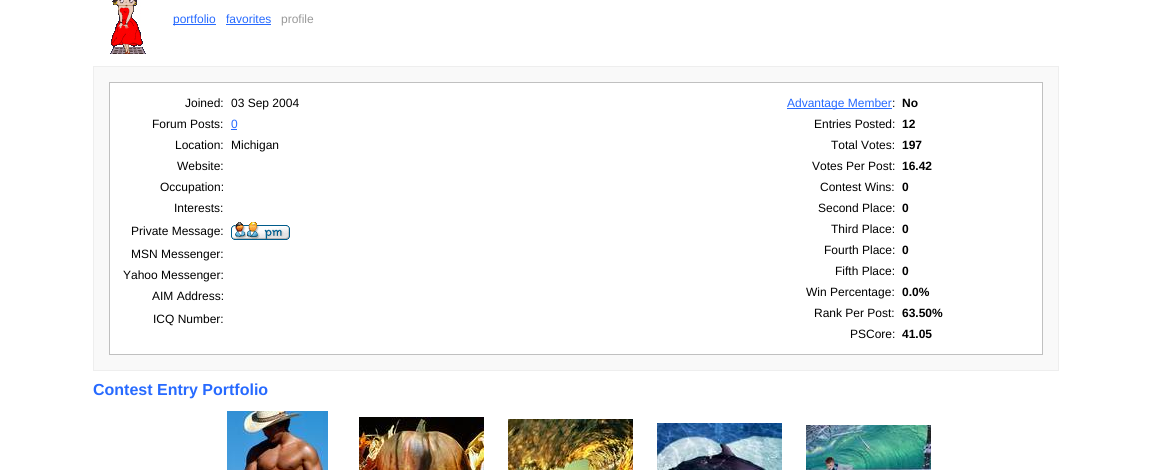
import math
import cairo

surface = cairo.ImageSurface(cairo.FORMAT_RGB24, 1152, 470)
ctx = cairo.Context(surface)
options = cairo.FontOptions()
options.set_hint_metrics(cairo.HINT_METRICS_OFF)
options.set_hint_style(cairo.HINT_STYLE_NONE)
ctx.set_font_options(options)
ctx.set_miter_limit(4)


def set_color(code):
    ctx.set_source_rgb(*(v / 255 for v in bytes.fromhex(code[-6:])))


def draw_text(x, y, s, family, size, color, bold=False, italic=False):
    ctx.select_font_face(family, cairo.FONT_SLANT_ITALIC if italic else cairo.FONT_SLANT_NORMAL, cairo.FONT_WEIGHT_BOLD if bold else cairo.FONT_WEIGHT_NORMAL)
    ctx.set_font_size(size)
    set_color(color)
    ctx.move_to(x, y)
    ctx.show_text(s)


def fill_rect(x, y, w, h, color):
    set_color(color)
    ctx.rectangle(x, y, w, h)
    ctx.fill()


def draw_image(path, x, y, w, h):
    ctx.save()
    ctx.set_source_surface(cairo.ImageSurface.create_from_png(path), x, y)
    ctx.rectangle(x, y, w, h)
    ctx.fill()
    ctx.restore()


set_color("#ffffff")
ctx.paint()
draw_image("assets/img1.png", 110, 0, 36, 54)
fill_rect(173, 24, 43, 1, "#276aff")
draw_text(173, 23, "portfolio", "Liberation Sans", 12, "#276aff")
draw_text(226, 23, "favorites", "Liberation Sans", 12, "#276aff")
fill_rect(226, 24, 45, 1, "#276aff")
draw_text(281, 23, "profile", "Liberation Sans", 12, "#999999")
set_color("#f9f9f9")
ctx.rectangle(93.5, 66.5, 965, 304)
ctx.fill_preserve()
set_color("#eeeeee")
ctx.set_line_width(1)
ctx.stroke()
set_color("#ffffff")
ctx.rectangle(109.5, 82.5, 933, 272)
ctx.fill_preserve()
set_color("#c0c0c0")
ctx.stroke()
draw_text(185, 107, "Joined:", "Liberation Sans", 12, "#000000")
draw_text(231, 107, "03 Sep 2004", "Liberation Sans", 12, "#000000")
draw_text(152, 128, "Forum Posts:", "Liberation Sans", 12, "#000000")
draw_text(231, 128, "0", "Liberation Sans", 12, "#276aff")
fill_rect(231, 129, 6, 1, "#276aff")
draw_text(175, 149, "Location:", "Liberation Sans", 12, "#000000")
draw_text(231, 149, "Michigan", "Liberation Sans", 12, "#000000")
draw_text(177, 170, "Website:", "Liberation Sans", 12, "#000000")
draw_text(160, 191, "Occupation:", "Liberation Sans", 12, "#000000")
draw_text(174, 212, "Interests:", "Liberation Sans", 12, "#000000")
draw_text(131, 235, "Private Message:", "Liberation Sans", 12, "#000000")
draw_image("assets/img2.png", 231, 222, 59, 18)
draw_text(131, 258, "MSN Messenger:", "Liberation Sans", 12, "#000000")
draw_text(123, 279, "Yahoo Messenger:", "Liberation Sans", 12, "#000000")
draw_text(152, 300, "AIM Address:", "Liberation Sans", 12, "#000000")
draw_text(153, 323, "ICQ Number:", "Liberation Sans", 12, "#000000")
fill_rect(787, 108, 105, 1, "#276aff")
draw_text(787, 107, "Advantage Member", "Liberation Sans", 12, "#276aff")
draw_text(892, 107, ":", "Liberation Sans", 12, "#000000")
draw_text(902, 107, "No", "Liberation Sans", 12, "#000000", bold=True)
draw_text(814, 128, "Entries Posted:", "Liberation Sans", 12, "#000000")
draw_text(902, 128, "12", "Liberation Sans", 12, "#000000", bold=True)
draw_text(831, 149, "Total Votes:", "Liberation Sans", 12, "#000000")
draw_text(902, 149, "197", "Liberation Sans", 12, "#000000", bold=True)
draw_text(812, 170, "Votes Per Post:", "Liberation Sans", 12, "#000000")
draw_text(902, 170, "16.42", "Liberation Sans", 12, "#000000", bold=True)
draw_text(820, 191, "Contest Wins:", "Liberation Sans", 12, "#000000")
draw_text(902, 191, "0", "Liberation Sans", 12, "#000000", bold=True)
draw_text(818, 212, "Second Place:", "Liberation Sans", 12, "#000000")
draw_text(902, 212, "0", "Liberation Sans", 12, "#000000", bold=True)
draw_text(831, 233, "Third Place:", "Liberation Sans", 12, "#000000")
draw_text(902, 233, "0", "Liberation Sans", 12, "#000000", bold=True)
draw_text(824, 254, "Fourth Place:", "Liberation Sans", 12, "#000000")
draw_text(902, 254, "0", "Liberation Sans", 12, "#000000", bold=True)
draw_text(835, 275, "Fifth Place:", "Liberation Sans", 12, "#000000")
draw_text(902, 275, "0", "Liberation Sans", 12, "#000000", bold=True)
draw_text(806, 296, "Win Percentage:", "Liberation Sans", 12, "#000000")
draw_text(902, 296, "0.0%", "Liberation Sans", 12, "#000000", bold=True)
draw_text(814, 317, "Rank Per Post:", "Liberation Sans", 12, "#000000")
draw_text(902, 317, "63.50%", "Liberation Sans", 12, "#000000", bold=True)
draw_text(850, 338, "PSCore:", "Liberation Sans", 12, "#000000")
draw_text(902, 338, "41.05", "Liberation Sans", 12, "#000000", bold=True)
draw_text(93, 395, "Contest Entry Portfolio", "Liberation Sans", 16, "#276aff", bold=True)
draw_image("assets/img3.png", 227, 411, 101, 59)
draw_image("assets/img4.png", 359, 417, 125, 53)
draw_image("assets/img5.png", 508, 419, 125, 51)
draw_image("assets/img6.png", 657, 423, 125, 47)
draw_image("assets/img7.png", 806, 425, 125, 45)
surface.write_to_png("output.png")
